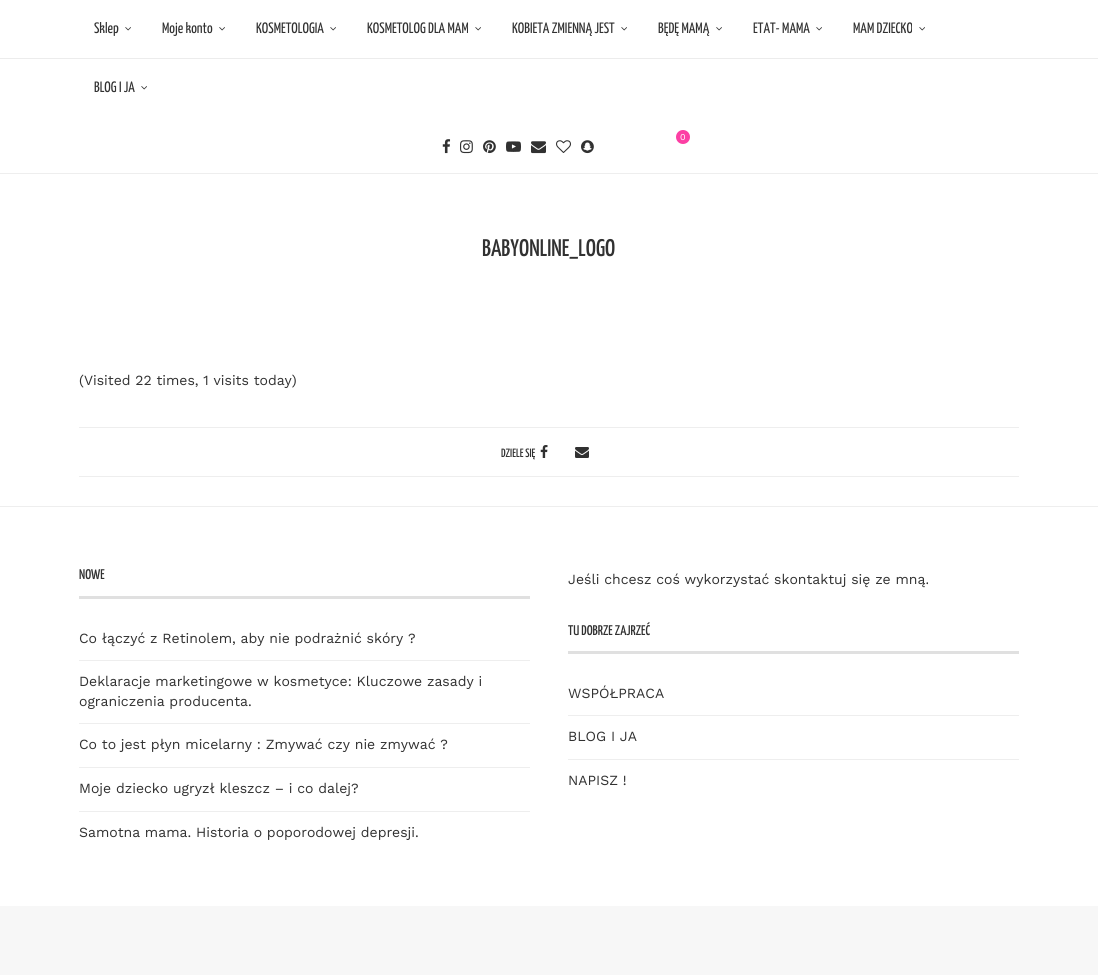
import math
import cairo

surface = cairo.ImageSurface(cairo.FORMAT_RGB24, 1098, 975)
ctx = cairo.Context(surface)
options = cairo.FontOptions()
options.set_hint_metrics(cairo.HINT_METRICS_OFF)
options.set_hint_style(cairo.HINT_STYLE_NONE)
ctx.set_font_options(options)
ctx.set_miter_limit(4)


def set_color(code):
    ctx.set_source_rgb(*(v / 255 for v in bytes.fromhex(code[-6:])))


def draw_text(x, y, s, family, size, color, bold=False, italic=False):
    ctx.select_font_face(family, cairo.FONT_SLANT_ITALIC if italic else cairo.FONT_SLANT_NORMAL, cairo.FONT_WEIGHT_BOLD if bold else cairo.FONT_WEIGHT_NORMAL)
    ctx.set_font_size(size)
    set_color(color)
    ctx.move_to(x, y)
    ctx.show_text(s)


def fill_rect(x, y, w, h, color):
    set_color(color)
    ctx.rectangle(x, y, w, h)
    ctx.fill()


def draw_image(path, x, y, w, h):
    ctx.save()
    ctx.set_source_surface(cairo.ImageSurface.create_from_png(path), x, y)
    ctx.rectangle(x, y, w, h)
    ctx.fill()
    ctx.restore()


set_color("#ffffff")
ctx.paint()
fill_rect(0, 58, 1098, 1, "#ececec")
draw_text(94, 33, "Sklep", "Yanone Kaffeesatz", 15, "#313131")
draw_image("assets/img1.png", 125, 27, 6, 4)
draw_text(162, 33, "Moje konto", "Yanone Kaffeesatz", 15, "#313131")
draw_image("assets/img2.png", 219, 27, 6, 4)
draw_text(256, 33, "KOSMETOLOGIA", "Yanone Kaffeesatz", 15, "#313131")
draw_image("assets/img3.png", 330, 27, 6, 4)
draw_text(367, 33, "KOSMETOLOG DLA MAM", "Yanone Kaffeesatz", 15, "#313131")
draw_image("assets/img4.png", 475, 27, 6, 4)
draw_text(512, 33, "KOBIETA ZMIENNĄ JEST", "Yanone Kaffeesatz", 15, "#313131")
draw_image("assets/img5.png", 621, 27, 6, 4)
draw_text(658, 33, "BĘDĘ MAMĄ", "Yanone Kaffeesatz", 15, "#313131")
draw_image("assets/img6.png", 716, 27, 6, 4)
draw_text(753, 33, "ETAT- MAMA", "Yanone Kaffeesatz", 15, "#313131")
draw_image("assets/img7.png", 816, 27, 6, 4)
draw_text(853, 33, "MAM DZIECKO", "Yanone Kaffeesatz", 15, "#313131")
draw_image("assets/img8.png", 919, 27, 6, 4)
draw_text(94, 92, "BLOG I JA", "Yanone Kaffeesatz", 15, "#313131")
draw_image("assets/img9.png", 141, 86, 6, 4)
set_color("#fc3fa4")
ctx.arc(683, 137, 7, 0, 2 * math.pi)
ctx.fill()
draw_text(680, 140, "0", "Work Sans", 9, "#ffffff")
draw_image("assets/img10.png", 442, 139, 9, 15)
draw_image("assets/img11.png", 460, 140, 13, 14)
draw_image("assets/img12.png", 483, 140, 13, 14)
draw_image("assets/img13.png", 506, 141, 15, 11)
draw_image("assets/img14.png", 531, 141, 15, 13)
draw_image("assets/img15.png", 556, 140, 15, 13)
draw_image("assets/img16.png", 581, 140, 13, 14)
fill_rect(0, 173, 1098, 1, "#eeeeee")
draw_text(482, 256, "BABYONLINE_LOGO", "Yanone Kaffeesatz Medium", 24, "#313131")
draw_text(79, 385, "(Visited 22 times, 1 visits today)", "Work Sans", 14, "#313131")
fill_rect(79, 427, 940, 1, "#eeeeee")
fill_rect(79, 476, 940, 1, "#eeeeee")
draw_text(501, 457, "DZIELE SIĘ", "Yanone Kaffeesatz Medium", 12, "#313131")
draw_image("assets/img17.png", 540, 445, 8, 13)
draw_image("assets/img18.png", 575, 447, 14, 11)
fill_rect(0, 506, 1098, 1, "#eeeeee")
fill_rect(79, 596, 451, 3, "#e0e0e0")
draw_text(79, 579, "NOWE", "Yanone Kaffeesatz Medium", 14, "#313131")
fill_rect(79, 660, 451, 1, "#eeeeee")
draw_text(79, 643, "Co łączyć z Retinolem, aby nie podrażnić skóry ?", "Work Sans", 14, "#313131")
fill_rect(79, 723, 451, 1, "#eeeeee")
draw_text(79, 686, "Deklaracje marketingowe w kosmetyce: Kluczowe zasady i", "Work Sans", 14, "#313131")
draw_text(79, 706, "ograniczenia producenta.", "Work Sans", 14, "#313131")
fill_rect(79, 767, 451, 1, "#eeeeee")
draw_text(79, 749, "Co to jest płyn micelarny : Zmywać czy nie zmywać ?", "Work Sans", 14, "#313131")
fill_rect(79, 811, 451, 1, "#eeeeee")
draw_text(79, 793, "Moje dziecko ugryzł kleszcz – i co dalej?", "Work Sans", 14, "#313131")
draw_text(79, 837, "Samotna mama. Historia o poporodowej depresji.", "Work Sans", 14, "#313131")
draw_text(568, 584, "Jeśli chcesz coś wykorzystać skontaktuj się ze mną.", "Work Sans", 14, "#313131")
fill_rect(568, 651, 451, 3, "#e0e0e0")
draw_text(568, 635, "TU DOBRZE ZAJRZEĆ", "Yanone Kaffeesatz Medium", 14, "#313131")
fill_rect(568, 715, 451, 1, "#eeeeee")
draw_text(568, 698, "WSPÓŁPRACA", "Work Sans", 14, "#313131")
fill_rect(568, 759, 451, 1, "#eeeeee")
draw_text(568, 741, "BLOG I JA", "Work Sans", 14, "#313131")
draw_text(568, 785, "NAPISZ !", "Work Sans", 14, "#313131")
fill_rect(0, 906, 1098, 69, "#f7f7f7")
surface.write_to_png("output.png")
